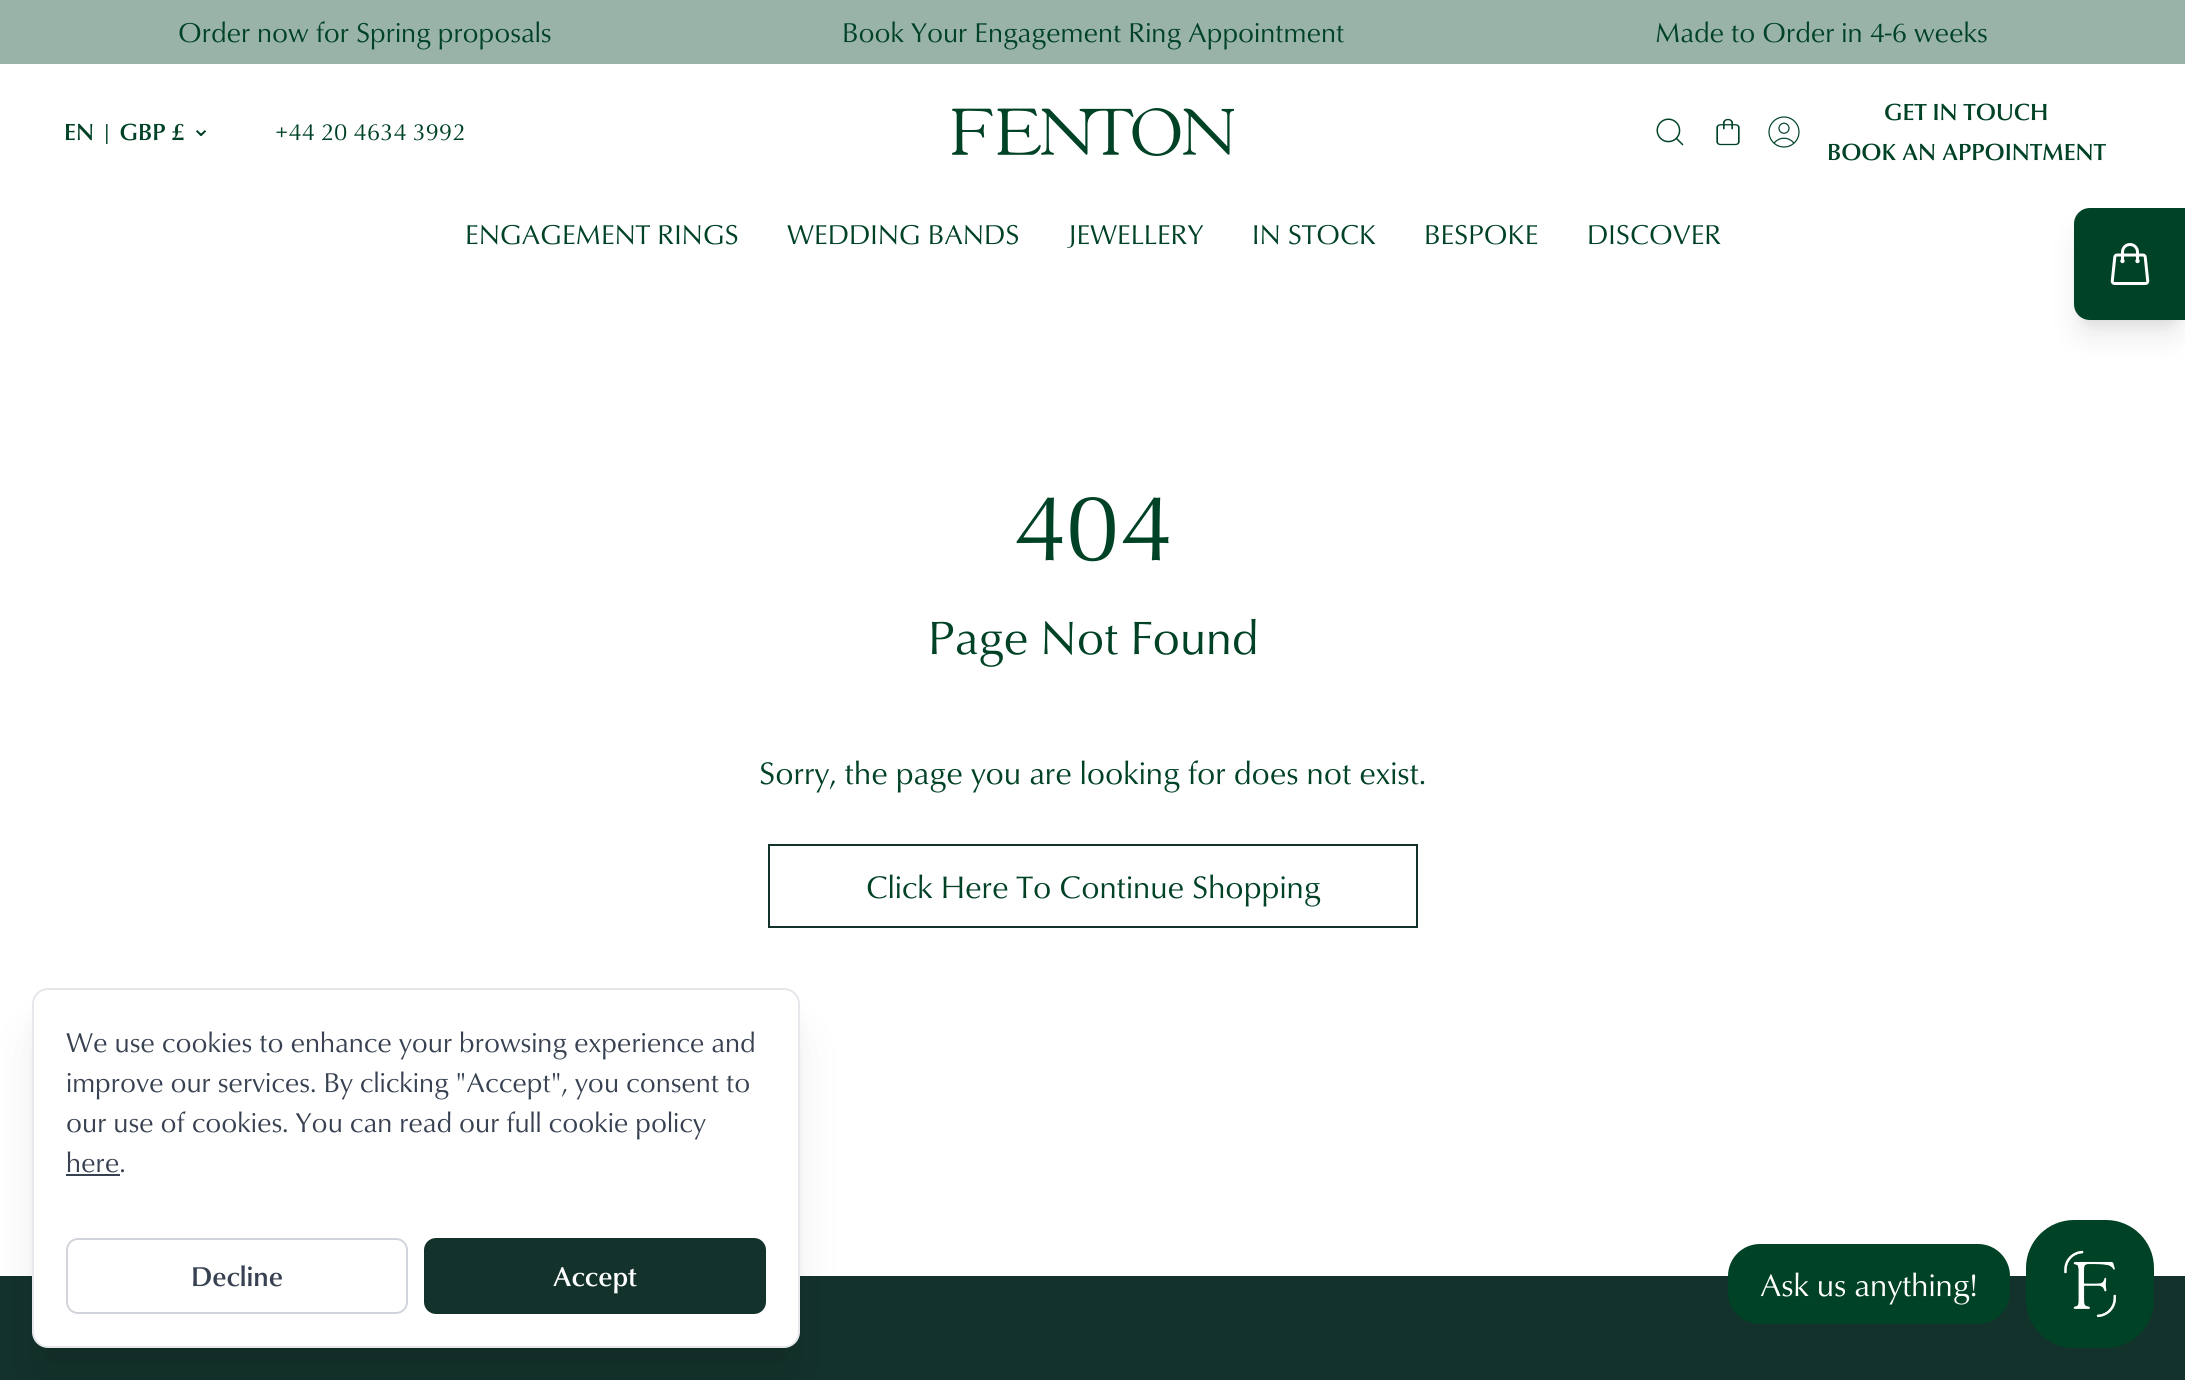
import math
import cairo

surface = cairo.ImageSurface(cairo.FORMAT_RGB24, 2185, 1380)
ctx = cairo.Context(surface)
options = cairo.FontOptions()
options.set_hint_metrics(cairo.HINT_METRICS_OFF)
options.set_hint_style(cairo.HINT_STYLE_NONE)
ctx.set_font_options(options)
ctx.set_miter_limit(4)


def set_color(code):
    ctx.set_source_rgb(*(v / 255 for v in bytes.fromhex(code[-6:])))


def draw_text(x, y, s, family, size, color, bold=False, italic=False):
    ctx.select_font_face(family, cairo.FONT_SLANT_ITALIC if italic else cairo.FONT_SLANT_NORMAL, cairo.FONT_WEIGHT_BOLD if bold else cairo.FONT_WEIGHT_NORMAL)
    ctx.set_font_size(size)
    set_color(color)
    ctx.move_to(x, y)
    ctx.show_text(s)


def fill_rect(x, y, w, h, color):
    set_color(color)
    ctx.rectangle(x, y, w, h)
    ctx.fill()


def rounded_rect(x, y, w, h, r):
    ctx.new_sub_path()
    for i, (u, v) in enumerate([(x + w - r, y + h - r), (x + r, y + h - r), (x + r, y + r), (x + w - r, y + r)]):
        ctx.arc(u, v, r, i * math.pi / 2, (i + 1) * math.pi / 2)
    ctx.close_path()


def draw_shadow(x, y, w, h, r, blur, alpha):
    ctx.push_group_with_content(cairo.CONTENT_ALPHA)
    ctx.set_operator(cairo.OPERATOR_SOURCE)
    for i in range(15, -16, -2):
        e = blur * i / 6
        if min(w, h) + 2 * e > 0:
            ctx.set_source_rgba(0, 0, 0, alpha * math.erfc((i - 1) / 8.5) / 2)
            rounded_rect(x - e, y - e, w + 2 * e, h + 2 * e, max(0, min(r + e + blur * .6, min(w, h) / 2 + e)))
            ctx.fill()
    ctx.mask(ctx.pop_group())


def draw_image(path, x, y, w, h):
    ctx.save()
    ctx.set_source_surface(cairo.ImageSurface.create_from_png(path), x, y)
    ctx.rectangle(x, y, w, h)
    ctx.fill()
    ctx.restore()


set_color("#ffffff")
ctx.paint()
fill_rect(0, 0, 2185, 64, "#99b3a8")
draw_text(178, 42, "Order now for Spring proposals", "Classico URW", 28, "#004225")
draw_text(842, 42, "Book Your Engagement Ring Appointment", "Classico URW", 28, "#004225")
draw_text(1655, 42, "Made to Order in 4-6 weeks", "Classico URW", 28, "#004225")
draw_text(64, 140, "EN | GBP £", "Classico URW Medium", 24, "#004225")
draw_text(191, 136, "⌄", "DejaVu Sans", 24, "#004225")
draw_text(275, 140, "+44 20 4634 3992", "Classico URW", 24, "#004225")
draw_image("assets/img1.png", 952, 108, 282, 48)
draw_image("assets/img2.png", 1656, 118, 28, 28)
draw_image("assets/img3.png", 1716, 118, 24, 28)
draw_image("assets/img4.png", 1768, 116, 32, 32)
draw_text(1884, 120, "GET IN TOUCH", "Classico URW Medium", 24, "#004225")
draw_text(1827, 160, "BOOK AN APPOINTMENT", "Classico URW Medium", 24, "#004225")
draw_text(465, 244, "ENGAGEMENT RINGS", "Classico URW", 28, "#004225")
draw_text(787, 244, "WEDDING BANDS", "Classico URW", 28, "#004225")
draw_text(1067, 244, "JEWELLERY", "Classico URW", 28, "#004225")
draw_text(1252, 244, "IN STOCK", "Classico URW", 28, "#004225")
draw_text(1424, 244, "BESPOKE", "Classico URW", 28, "#004225")
draw_text(1587, 244, "DISCOVER", "Classico URW", 28, "#004225")
set_color("#000000")
draw_shadow(2082, 224, 96, 96, 8, 6, 0.1)
draw_shadow(2080, 234, 100, 100, 10, 15, 0.1)
set_color("#004225")
ctx.new_path()
ctx.move_to(2090, 208)
ctx.line_to(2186, 208)
ctx.line_to(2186, 320)
ctx.line_to(2090, 320)
ctx.curve_to(2081, 320, 2074, 313, 2074, 304)
ctx.line_to(2074, 224)
ctx.curve_to(2074, 215, 2081, 208, 2090, 208)
ctx.close_path()
ctx.fill()
draw_image("assets/img5.png", 2110, 243, 40, 42)
draw_text(1013, 560, "404", "Classico URW", 96, "#004225")
draw_text(928, 654, "Page Not Found", "Classico URW", 48, "#004225")
draw_text(759, 784, "Sorry, the page you are looking for does not exist.", "Classico URW", 32, "#004225")
ctx.rectangle(769, 845, 648, 82)
set_color("#13322b")
ctx.stroke()
draw_text(866, 898, "Click Here To Continue Shopping", "Classico URW", 32, "#004225")
fill_rect(0, 1276, 2185, 104, "#13322b")
set_color("#000000")
draw_shadow(44, 1016, 744, 336, 4, 10, 0.1)
draw_shadow(42, 1038, 748, 340, 6, 25, 0.1)
set_color("#ffffff")
rounded_rect(33, 989, 766, 358, 15)
ctx.fill_preserve()
set_color("#e5e7eb")
ctx.stroke()
draw_text(66, 1052, "We use cookies to enhance your browsing experience and", "Classico URW", 28, "#374151")
draw_text(66, 1092, "improve our services. By clicking \"Accept\", you consent to", "Classico URW", 28, "#374151")
draw_text(66, 1132, "our use of cookies. You can read our full cookie policy", "Classico URW", 28, "#374151")
draw_text(66, 1172, "here.", "Classico URW", 28, "#374151")
fill_rect(66, 1174, 54, 2, "#374151")
rounded_rect(67, 1239, 340, 74, 11)
set_color("#d1d5db")
ctx.stroke()
draw_text(191, 1286, "Decline", "Classico URW Medium", 28, "#374151")
set_color("#13322b")
rounded_rect(424, 1238, 342, 76, 12)
ctx.fill()
draw_text(553, 1286, "Accept", "Classico URW Medium", 28, "#ffffff")
set_color("#004225")
rounded_rect(1728, 1244, 282, 80, 32)
ctx.fill()
draw_text(1760, 1296, "Ask us anything!", "Classico URW", 32, "#ffffff")
set_color("#004225")
rounded_rect(2026, 1220, 128, 128, 48)
ctx.fill()
draw_image("assets/img6.png", 2064, 1250, 52, 68)
surface.write_to_png("output.png")
